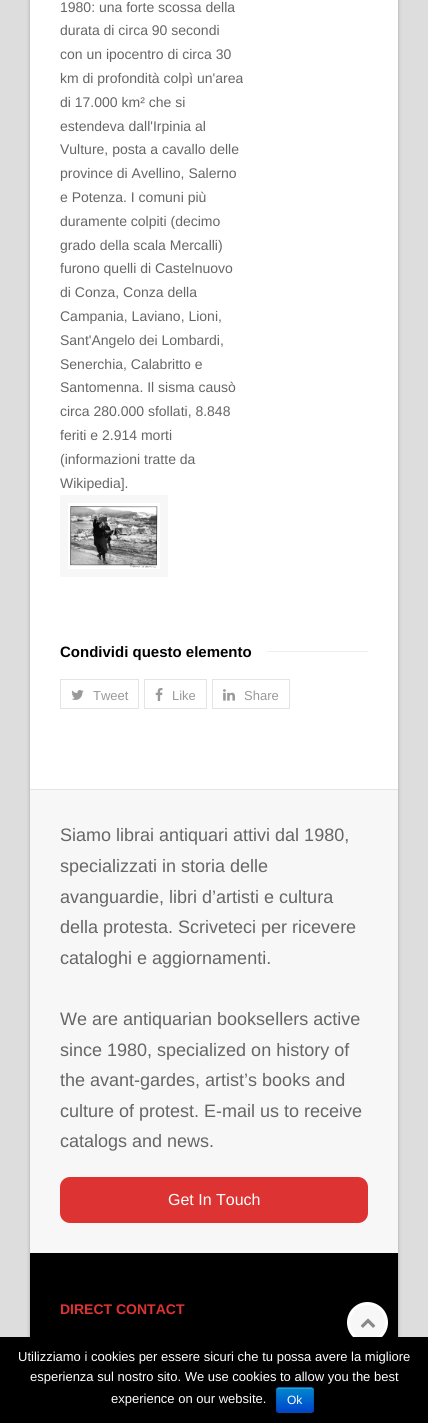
import math
import cairo

surface = cairo.ImageSurface(cairo.FORMAT_RGB24, 428, 1423)
ctx = cairo.Context(surface)
options = cairo.FontOptions()
options.set_hint_metrics(cairo.HINT_METRICS_OFF)
options.set_hint_style(cairo.HINT_STYLE_NONE)
ctx.set_font_options(options)
ctx.set_miter_limit(4)


def set_color(code):
    ctx.set_source_rgb(*(v / 255 for v in bytes.fromhex(code[-6:])))


def draw_text(x, y, s, family, size, color, bold=False, italic=False):
    ctx.select_font_face(family, cairo.FONT_SLANT_ITALIC if italic else cairo.FONT_SLANT_NORMAL, cairo.FONT_WEIGHT_BOLD if bold else cairo.FONT_WEIGHT_NORMAL)
    ctx.set_font_size(size)
    set_color(color)
    ctx.move_to(x, y)
    ctx.show_text(s)


def fill_rect(x, y, w, h, color):
    set_color(color)
    ctx.rectangle(x, y, w, h)
    ctx.fill()


def rounded_rect(x, y, w, h, r):
    ctx.new_sub_path()
    for i, (u, v) in enumerate([(x + w - r, y + h - r), (x + r, y + h - r), (x + r, y + r), (x + w - r, y + r)]):
        ctx.arc(u, v, r, i * math.pi / 2, (i + 1) * math.pi / 2)
    ctx.close_path()


def draw_shadow(x, y, w, h, r, blur, alpha):
    ctx.push_group_with_content(cairo.CONTENT_ALPHA)
    ctx.set_operator(cairo.OPERATOR_SOURCE)
    for i in range(15, -16, -2):
        e = blur * i / 6
        if min(w, h) + 2 * e > 0:
            ctx.set_source_rgba(0, 0, 0, alpha * math.erfc((i - 1) / 8.5) / 2)
            rounded_rect(x - e, y - e, w + 2 * e, h + 2 * e, max(0, min(r + e + blur * .6, min(w, h) / 2 + e)))
            ctx.fill()
    ctx.mask(ctx.pop_group())


def draw_image(path, x, y, w, h):
    ctx.save()
    ctx.set_source_surface(cairo.ImageSurface.create_from_png(path), x, y)
    ctx.rectangle(x, y, w, h)
    ctx.fill()
    ctx.restore()


set_color("#dddddd")
ctx.paint()
set_color("#000000")
draw_shadow(30, -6, 368, 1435, 0, 2, 0.25)
fill_rect(30, 0, 368, 789, "#ffffff")
draw_text(60, 12, "1980: una forte scossa della", "Liberation Sans", 14, "#666666")
draw_text(60, 35, "durata di circa 90 secondi", "Liberation Sans", 14, "#666666")
draw_text(60, 59, "con un ipocentro di circa 30", "Liberation Sans", 14, "#666666")
draw_text(60, 83, "km di profondità colpì un'area", "Liberation Sans", 14, "#666666")
draw_text(60, 107, "di 17.000 km² che si", "Liberation Sans", 14, "#666666")
draw_text(60, 131, "estendeva dall'Irpinia al", "Liberation Sans", 14, "#666666")
draw_text(60, 154, "Vulture, posta a cavallo delle", "Liberation Sans", 14, "#666666")
draw_text(60, 178, "province di Avellino, Salerno", "Liberation Sans", 14, "#666666")
draw_text(60, 202, "e Potenza. I comuni più", "Liberation Sans", 14, "#666666")
draw_text(60, 226, "duramente colpiti (decimo", "Liberation Sans", 14, "#666666")
draw_text(60, 250, "grado della scala Mercalli)", "Liberation Sans", 14, "#666666")
draw_text(60, 273, "furono quelli di Castelnuovo", "Liberation Sans", 14, "#666666")
draw_text(60, 297, "di Conza, Conza della", "Liberation Sans", 14, "#666666")
draw_text(60, 321, "Campania, Laviano, Lioni,", "Liberation Sans", 14, "#666666")
draw_text(60, 345, "Sant'Angelo dei Lombardi,", "Liberation Sans", 14, "#666666")
draw_text(60, 369, "Senerchia, Calabritto e", "Liberation Sans", 14, "#666666")
draw_text(60, 392, "Santomenna. Il sisma causò", "Liberation Sans", 14, "#666666")
draw_text(60, 416, "circa 280.000 sfollati, 8.848", "Liberation Sans", 14, "#666666")
draw_text(60, 440, "feriti e 2.914 morti", "Liberation Sans", 14, "#666666")
draw_text(60, 464, "(informazioni tratte da", "Liberation Sans", 14, "#666666")
draw_text(60, 488, "Wikipedia].", "Liberation Sans", 14, "#666666")
fill_rect(60, 495, 108, 82, "#f7f7f7")
draw_image("assets/img1.png", 68, 503, 92, 66)
fill_rect(267, 651, 101, 1, "#eeeeee")
draw_text(60, 657, "Condividi questo elemento", "Liberation Sans", 15, "#000000", bold=True)
ctx.rectangle(60.5, 679.5, 78, 29)
set_color("#e4e4e4")
ctx.set_line_width(1)
ctx.stroke()
draw_image("assets/img2.png", 71, 690, 13, 10)
draw_text(93, 700, "Tweet", "Liberation Sans", 13, "#999999")
ctx.rectangle(144.5, 679.5, 62, 29)
set_color("#e4e4e4")
ctx.stroke()
draw_image("assets/img3.png", 155, 688, 8, 13)
draw_text(172, 700, "Like", "Liberation Sans", 13, "#999999")
ctx.rectangle(212.5, 679.5, 77, 29)
set_color("#e4e4e4")
ctx.stroke()
draw_image("assets/img4.png", 223, 689, 12, 12)
draw_text(244, 700, "Share", "Liberation Sans", 13, "#999999")
fill_rect(30, 790, 368, 463, "#f7f7f7")
fill_rect(30, 789, 368, 1, "#e4e4e4")
draw_text(60, 841, "Siamo librai antiquari attivi dal 1980,", "Liberation Sans", 18, "#666666")
draw_text(60, 872, "specializzati in storia delle", "Liberation Sans", 18, "#666666")
draw_text(60, 903, "avanguardie, libri d’artisti e cultura", "Liberation Sans", 18, "#666666")
draw_text(60, 933, "della protesta. Scriveteci per ricevere", "Liberation Sans", 18, "#666666")
draw_text(60, 964, "cataloghi e aggiornamenti.", "Liberation Sans", 18, "#666666")
draw_text(60, 1025, "We are antiquarian booksellers active", "Liberation Sans", 18, "#666666")
draw_text(60, 1056, "since 1980, specialized on history of", "Liberation Sans", 18, "#666666")
draw_text(60, 1086, "the avant-gardes, artist’s books and", "Liberation Sans", 18, "#666666")
draw_text(60, 1117, "culture of protest. E-mail us to receive", "Liberation Sans", 18, "#666666")
draw_text(60, 1147, "catalogs and news.", "Liberation Sans", 18, "#666666")
set_color("#dd3333")
rounded_rect(60, 1177, 308, 46, 10)
ctx.fill()
draw_text(168, 1205, "Get In Touch", "Liberation Sans", 16, "#ffffff")
fill_rect(30, 1253, 368, 84, "#000000")
draw_text(60, 1314, "DIRECT CONTACT", "Liberation Sans", 14, "#dd3333", bold=True)
set_color("#f7f7f7")
ctx.new_path()
ctx.arc(367.5, 1322.5, 19, 0, 2 * math.pi)
ctx.fill_preserve()
set_color("#ffffff")
ctx.set_line_width(3)
ctx.stroke()
draw_image("assets/img5.png", 360, 1318, 16, 10)
fill_rect(0, 1337, 428, 86, "#000000")
draw_text(18, 1361, "Utilizziamo i cookies per essere sicuri che tu possa avere la migliore", "Liberation Sans", 13, "#ffffff")
draw_text(30, 1381, "esperienza sul nostro sito. We use cookies to allow you the best", "Liberation Sans", 13, "#ffffff")
draw_text(111, 1403, "experience on our website.", "Liberation Sans", 13, "#ffffff")
set_color("#006dcc")
rounded_rect(276, 1387, 38, 26, 3)
ctx.fill()
ctx.save()
rounded_rect(276, 1387, 38, 26, 3)
ctx.clip()
gradient = cairo.LinearGradient(295, 1388, 295, 1412)
gradient.add_color_stop_rgba(0, 0, 0.533, 0.8, 1)
gradient.add_color_stop_rgba(1, 0, 0.267, 0.8, 1)
ctx.set_source(gradient)
ctx.rectangle(276, 1388, 38, 24)
ctx.fill()
ctx.restore()
ctx.set_source_rgba(1, 1, 1, 0.2)
ctx.new_path()
ctx.move_to(279, 1389)
ctx.line_to(311, 1389)
ctx.curve_to(312, 1389, 313, 1390, 313, 1391)
ctx.curve_to(313, 1386.5, 309.5, 1388, 305.5, 1388)
ctx.line_to(284.5, 1388)
ctx.curve_to(280.5, 1388, 277, 1386.5, 277, 1391)
ctx.curve_to(277, 1390, 278, 1389, 279, 1389)
ctx.close_path()
ctx.fill()
ctx.new_path()
ctx.move_to(313, 1412)
ctx.curve_to(312.5, 1412, 311.5, 1412.5, 311, 1412.5)
ctx.line_to(279, 1412.5)
ctx.curve_to(278.5, 1412.5, 277.5, 1412, 277, 1412)
ctx.set_source_rgba(0, 0, 0, 0.25)
ctx.set_line_width(1)
ctx.stroke()
ctx.new_path()
ctx.move_to(277, 1412)
ctx.curve_to(277, 1411.5, 276.5, 1410.5, 276.5, 1410)
ctx.line_to(276.5, 1390)
ctx.curve_to(276.5, 1389.5, 277, 1388.5, 277, 1388)
ctx.curve_to(277.5, 1388, 278.5, 1387.5, 279, 1387.5)
ctx.line_to(311, 1387.5)
ctx.curve_to(311.5, 1387.5, 312.5, 1388, 313, 1388)
ctx.curve_to(313, 1388.5, 313.5, 1389.5, 313.5, 1390)
ctx.line_to(313.5, 1410)
ctx.curve_to(313.5, 1410.5, 313, 1411.5, 313, 1412)
ctx.set_source_rgba(0, 0, 0, 0.1)
ctx.stroke()
draw_text(287, 1404, "Ok", "Liberation Sans", 12, "#ffffff")
surface.write_to_png("output.png")
